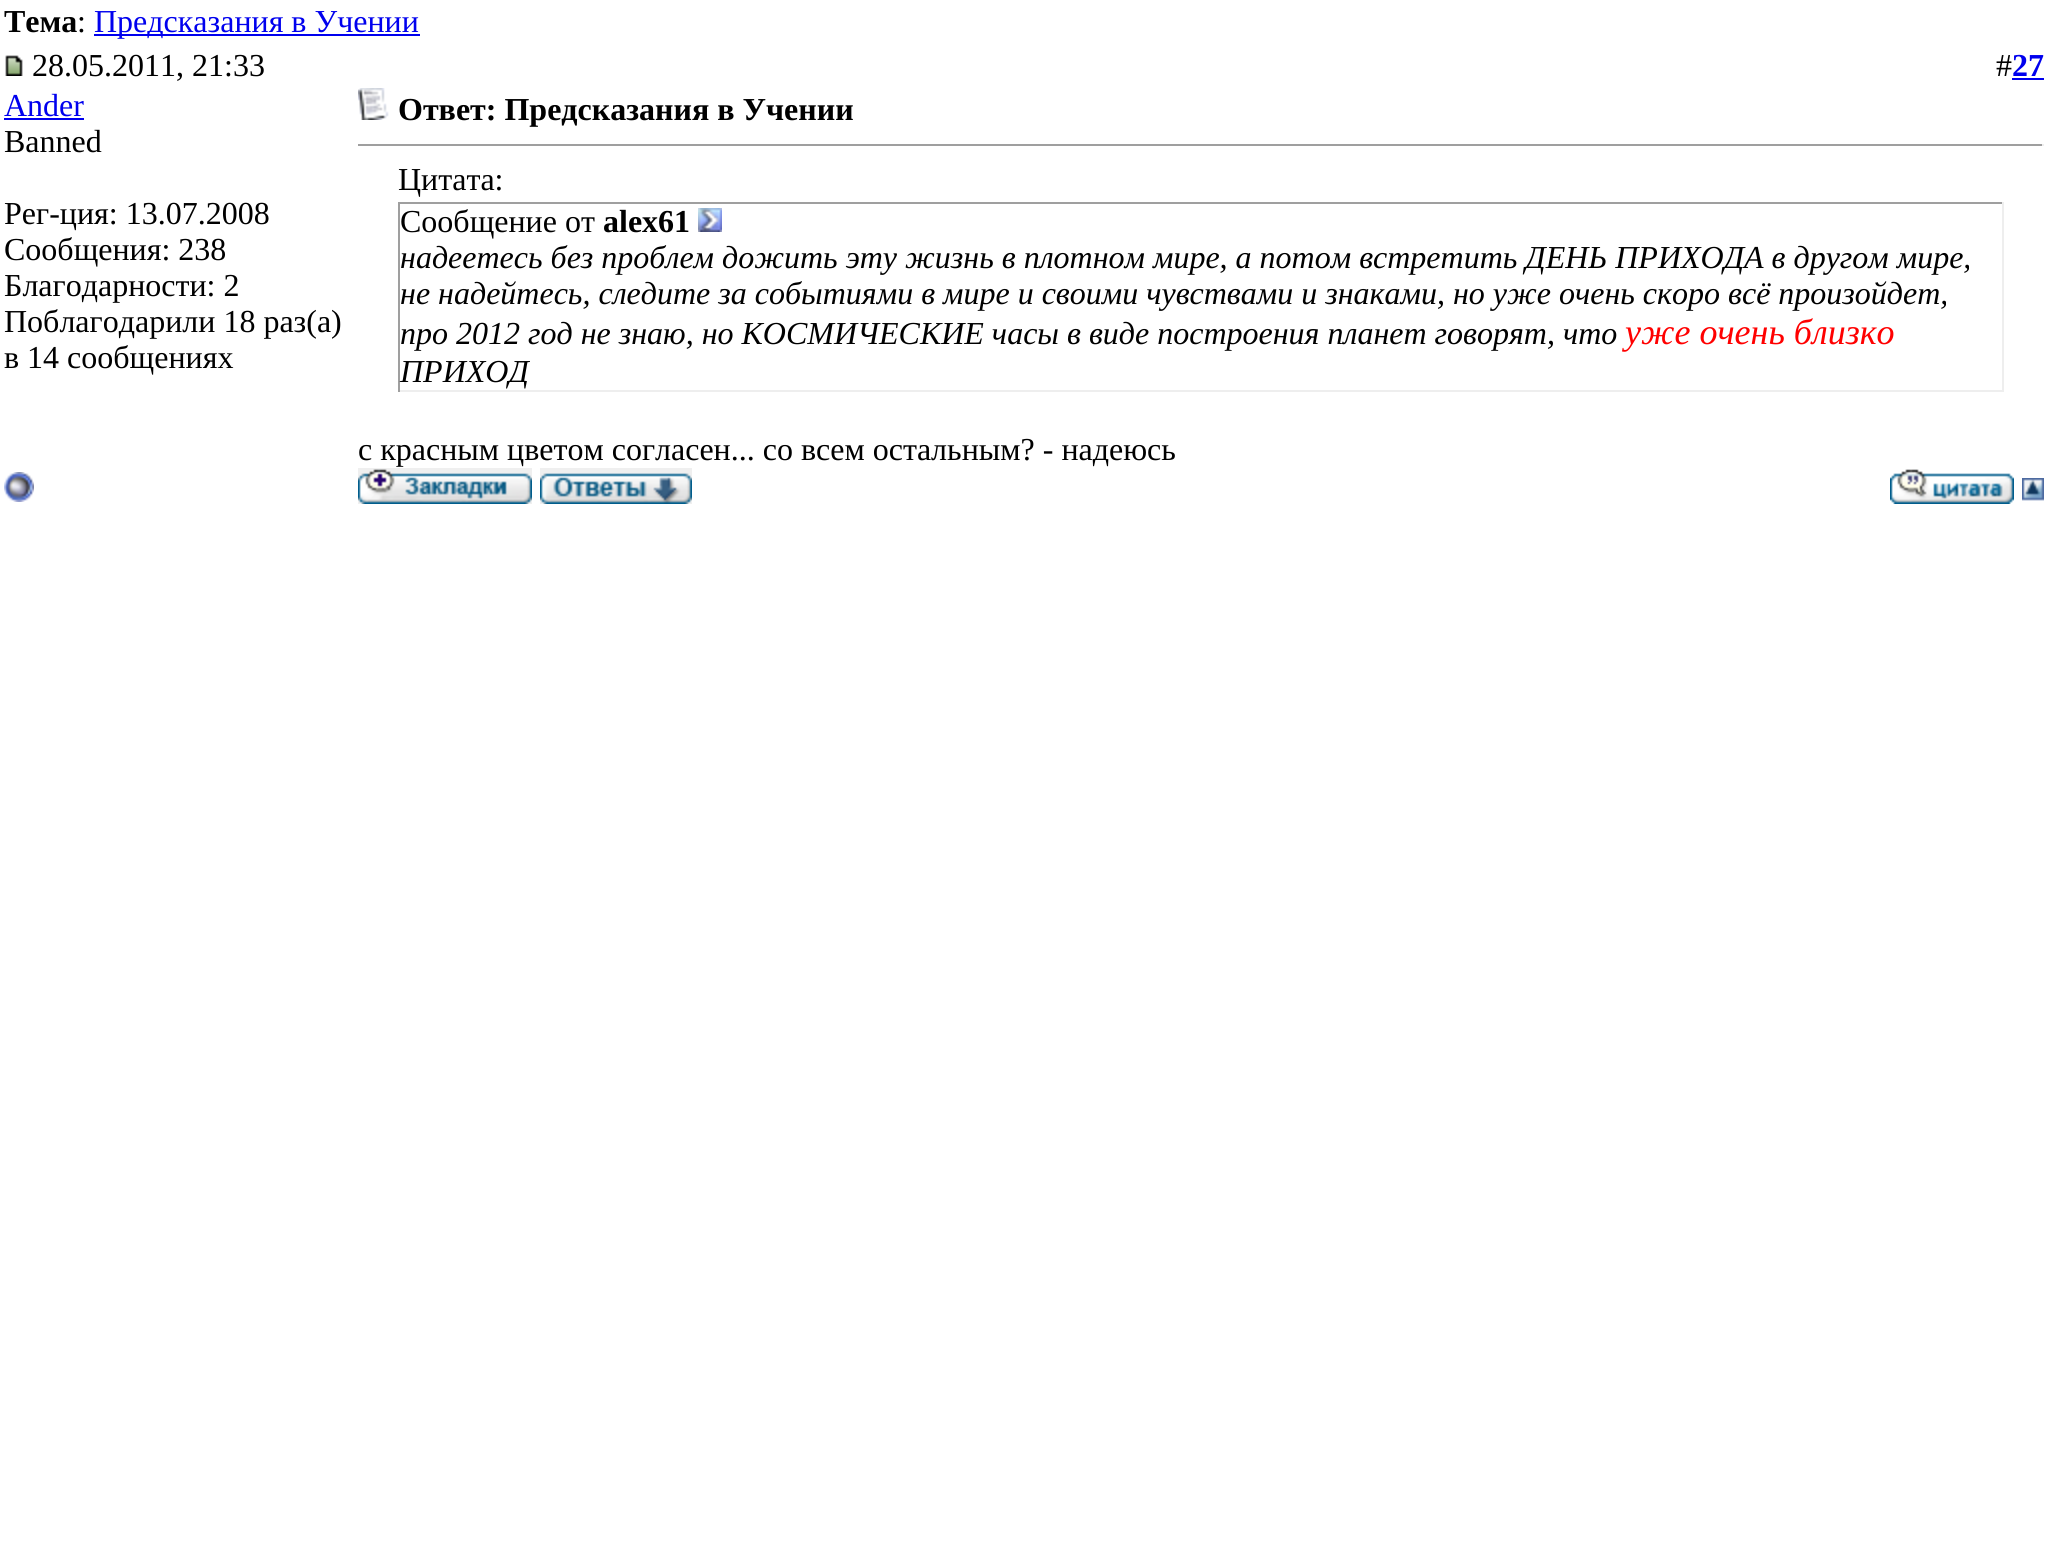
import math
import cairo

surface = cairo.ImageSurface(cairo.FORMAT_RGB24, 2047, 1555)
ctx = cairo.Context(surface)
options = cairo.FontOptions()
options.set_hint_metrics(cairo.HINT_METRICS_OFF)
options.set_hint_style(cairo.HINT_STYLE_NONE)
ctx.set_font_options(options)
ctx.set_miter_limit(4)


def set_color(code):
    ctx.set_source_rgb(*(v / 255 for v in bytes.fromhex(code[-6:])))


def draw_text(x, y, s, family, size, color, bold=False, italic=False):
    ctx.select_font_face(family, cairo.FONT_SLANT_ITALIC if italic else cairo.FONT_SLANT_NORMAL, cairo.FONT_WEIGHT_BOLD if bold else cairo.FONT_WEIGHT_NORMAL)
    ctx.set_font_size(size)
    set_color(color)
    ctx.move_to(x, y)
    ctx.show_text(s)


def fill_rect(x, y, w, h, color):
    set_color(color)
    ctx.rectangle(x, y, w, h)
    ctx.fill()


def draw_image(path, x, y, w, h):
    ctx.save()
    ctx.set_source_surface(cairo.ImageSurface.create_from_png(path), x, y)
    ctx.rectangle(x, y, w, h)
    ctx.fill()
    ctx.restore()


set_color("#ffffff")
ctx.paint()
draw_text(4, 32, "Тема", "Liberation Serif", 32, "#000000", bold=True)
draw_text(77, 32, ":", "Liberation Serif", 32, "#000000")
fill_rect(94, 34, 326, 2, "#0000ee")
draw_text(94, 32, "Предсказания в Учении", "Liberation Serif", 32, "#0000ee")
draw_image("assets/img1.png", 5, 55, 18, 21)
draw_text(32, 76, "28.05.2011, 21:33", "Liberation Serif", 32, "#000000")
draw_text(1996, 76, "#", "Liberation Serif", 32, "#000000")
draw_text(2012, 76, "27", "Liberation Serif", 32, "#0000ee", bold=True)
fill_rect(2012, 78, 32, 2, "#0000ee")
draw_text(4, 116, "Ander", "Liberation Serif", 32, "#0000ee")
fill_rect(4, 118, 80, 2, "#0000ee")
draw_text(4, 152, "Banned", "Liberation Serif", 32, "#000000")
draw_text(4, 224, "Рег-ция: 13.07.2008", "Liberation Serif", 32, "#000000")
draw_text(4, 260, "Сообщения: 238", "Liberation Serif", 32, "#000000")
draw_text(4, 296, "Благодарности: 2", "Liberation Serif", 32, "#000000")
draw_text(4, 332, "Поблагодарили 18 раз(а)", "Liberation Serif", 32, "#000000")
draw_text(4, 368, "в 14 сообщениях", "Liberation Serif", 32, "#000000")
draw_image("assets/img2.png", 358, 88, 31, 32)
draw_text(398, 120, "Ответ: Предсказания в Учении", "Liberation Serif", 32, "#000000", bold=True)
fill_rect(358, 144, 1686, 2, "#9f9f9f")
fill_rect(2042, 144, 2, 2, "#eeeeee")
draw_text(398, 190, "Цитата:", "Liberation Serif", 32, "#000000")
fill_rect(398, 202, 1606, 2, "#9f9f9f")
fill_rect(2002, 202, 2, 190, "#eeeeee")
fill_rect(398, 390, 1606, 2, "#eeeeee")
fill_rect(398, 202, 2, 190, "#9f9f9f")
draw_text(400, 232, "Сообщение от", "Liberation Serif", 32, "#000000")
draw_text(603, 232, "alex61", "Liberation Serif", 32, "#000000", bold=True)
draw_image("assets/img3.png", 698, 208, 24, 24)
draw_text(400, 268, "надеетесь без проблем дожить эту жизнь в плотном мире, а потом встретить ДЕНЬ ПРИХОДА в другом мире,", "Liberation Serif", 32, "#000000", italic=True)
draw_text(400, 304, "не надейтесь, следите за событиями в мире и своими чувствами и знаками, но уже очень скоро всё произойдет,", "Liberation Serif", 32, "#000000", italic=True)
draw_text(400, 344, "про 2012 год не знаю, но КОСМИЧЕСКИЕ часы в виде построения планет говорят, что", "Liberation Serif", 32, "#000000", italic=True)
draw_text(1625, 344, "уже очень близко", "Liberation Serif", 36, "#ff0000", italic=True)
draw_text(400, 382, "ПРИХОД", "Liberation Serif", 32, "#000000", italic=True)
draw_text(358, 460, "с красным цветом согласен... со всем остальным? - надеюсь", "Liberation Serif", 32, "#000000")
draw_image("assets/img4.png", 4, 472, 30, 30)
draw_image("assets/img5.png", 358, 468, 174, 36)
draw_image("assets/img6.png", 540, 468, 152, 36)
draw_image("assets/img7.png", 1890, 469, 124, 35)
draw_image("assets/img8.png", 2022, 478, 22, 23)
surface.write_to_png("output.png")
